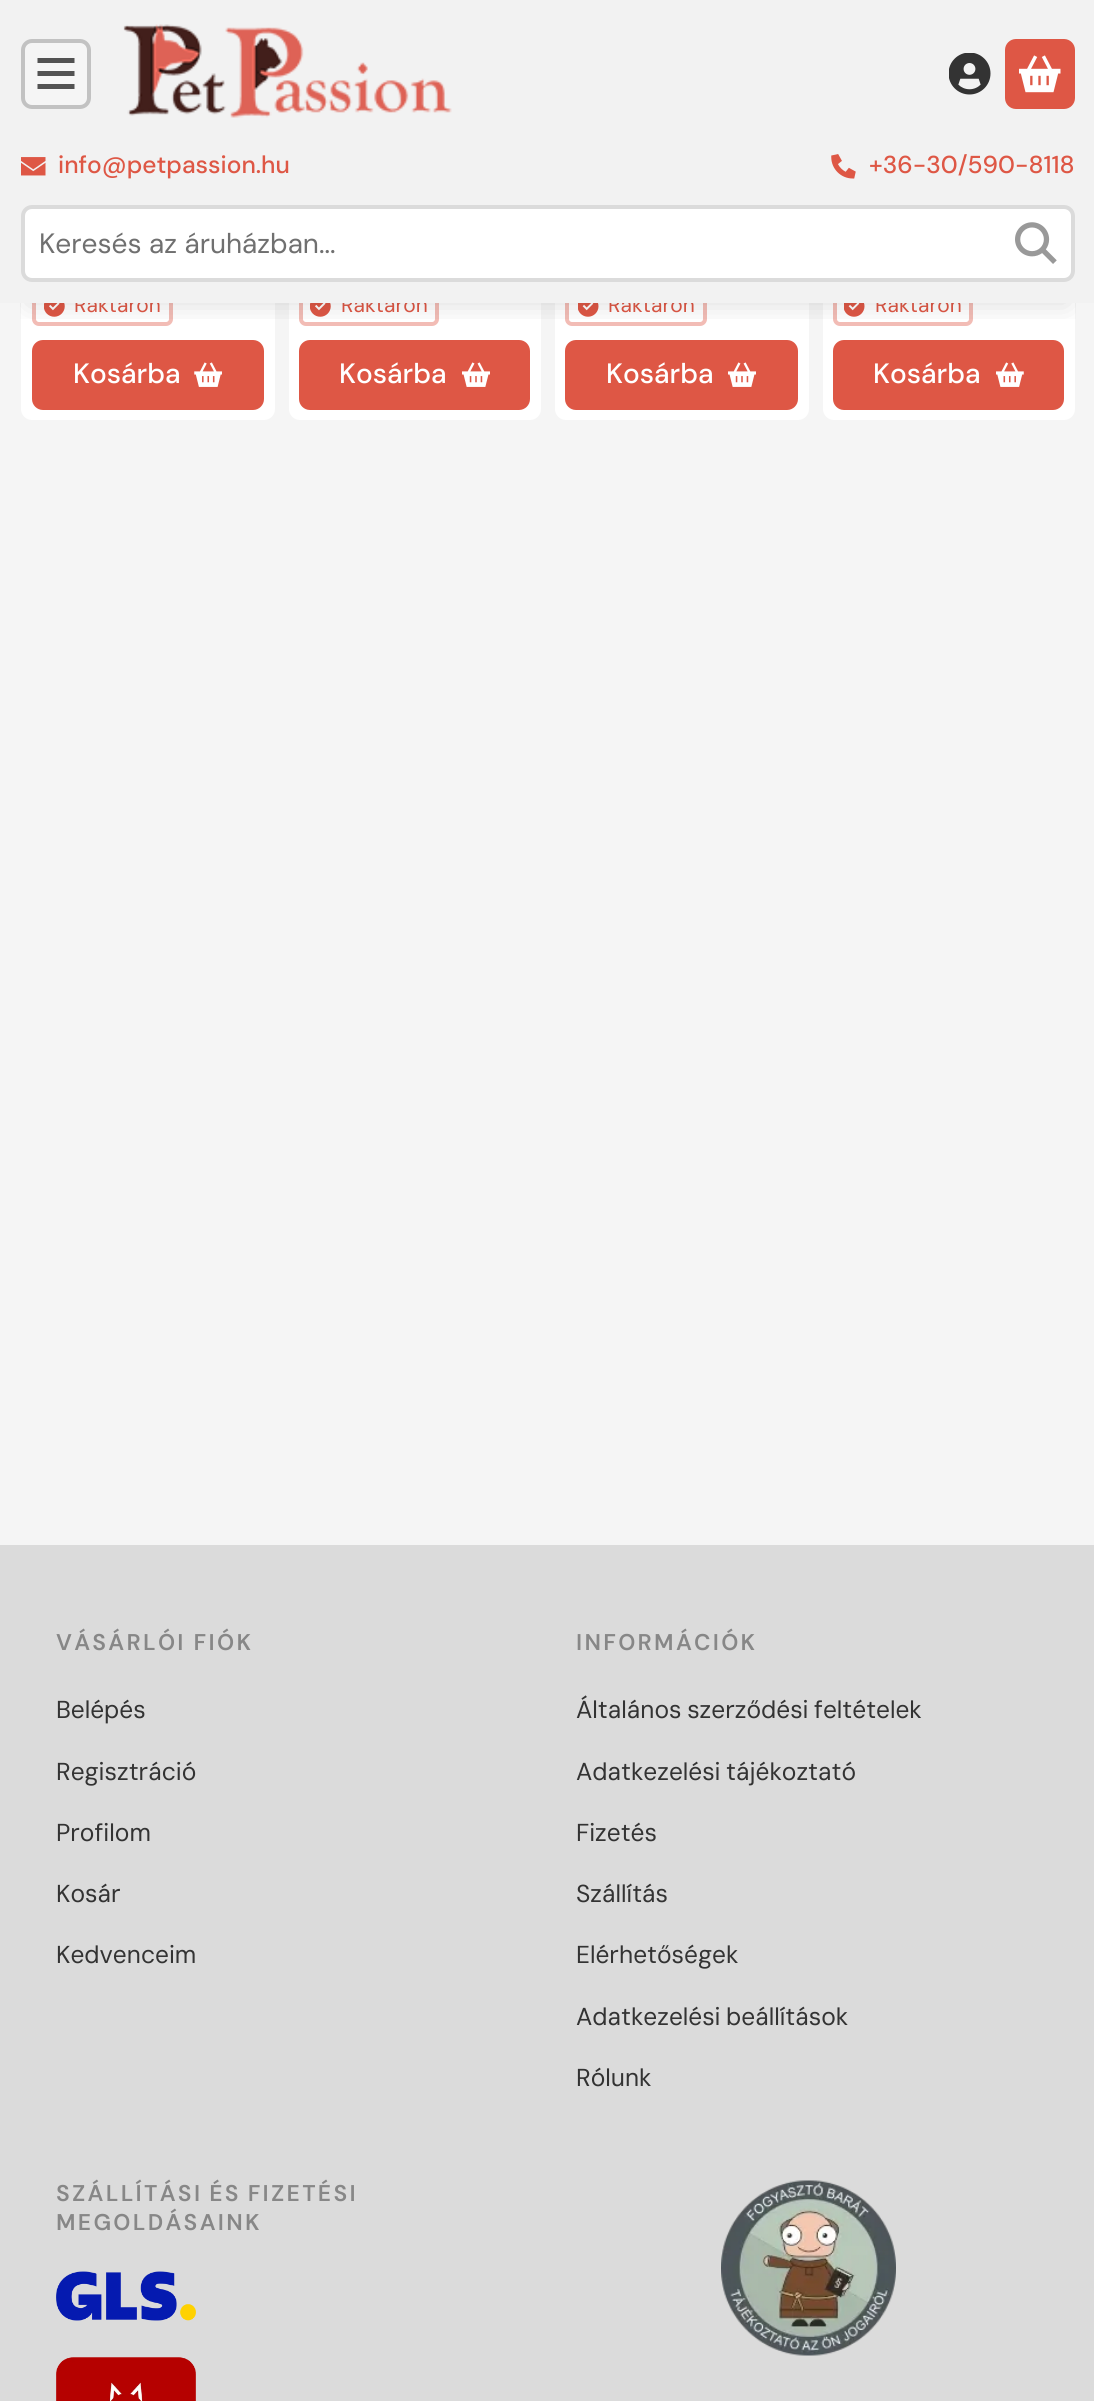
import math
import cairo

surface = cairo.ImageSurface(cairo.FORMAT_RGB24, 1094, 2401)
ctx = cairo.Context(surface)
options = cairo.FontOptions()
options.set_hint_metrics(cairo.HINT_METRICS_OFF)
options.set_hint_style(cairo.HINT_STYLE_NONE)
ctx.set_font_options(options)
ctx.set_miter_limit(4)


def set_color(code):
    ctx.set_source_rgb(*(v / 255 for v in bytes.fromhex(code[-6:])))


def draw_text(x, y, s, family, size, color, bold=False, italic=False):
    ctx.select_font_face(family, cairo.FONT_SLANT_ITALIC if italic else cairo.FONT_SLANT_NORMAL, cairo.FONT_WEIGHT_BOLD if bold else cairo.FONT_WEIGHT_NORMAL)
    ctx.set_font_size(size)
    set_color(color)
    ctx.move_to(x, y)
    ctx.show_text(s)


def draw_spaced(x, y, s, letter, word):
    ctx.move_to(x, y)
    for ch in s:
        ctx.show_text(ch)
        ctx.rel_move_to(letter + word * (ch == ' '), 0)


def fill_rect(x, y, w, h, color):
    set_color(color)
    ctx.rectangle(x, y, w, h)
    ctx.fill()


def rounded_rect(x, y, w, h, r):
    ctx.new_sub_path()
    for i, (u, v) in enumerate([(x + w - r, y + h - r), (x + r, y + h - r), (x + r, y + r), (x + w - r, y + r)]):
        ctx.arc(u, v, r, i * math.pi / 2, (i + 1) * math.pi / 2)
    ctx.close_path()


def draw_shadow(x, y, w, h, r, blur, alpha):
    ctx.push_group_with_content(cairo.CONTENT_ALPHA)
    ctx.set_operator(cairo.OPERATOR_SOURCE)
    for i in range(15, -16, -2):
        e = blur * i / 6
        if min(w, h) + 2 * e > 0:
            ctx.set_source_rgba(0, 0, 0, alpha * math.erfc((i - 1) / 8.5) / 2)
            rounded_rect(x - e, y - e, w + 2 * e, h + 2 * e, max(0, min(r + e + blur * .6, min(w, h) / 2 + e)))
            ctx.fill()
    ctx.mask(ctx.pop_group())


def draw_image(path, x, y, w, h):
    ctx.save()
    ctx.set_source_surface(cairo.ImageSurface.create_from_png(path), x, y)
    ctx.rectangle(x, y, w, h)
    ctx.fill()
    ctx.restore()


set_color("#f5f5f5")
ctx.paint()
set_color("#ffffff")
rounded_rect(21, -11, 254, 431, 11)
ctx.fill()
rounded_rect(34, 289, 137, 35, 5)
set_color("#f2bcb5")
ctx.set_line_width(4)
ctx.stroke()
draw_text(74, 312, "Raktáron", "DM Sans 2", 21, "#de5745")
set_color("#ffffff")
rounded_rect(289, -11, 252, 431, 11)
ctx.fill()
rounded_rect(301, 289, 136, 35, 5)
set_color("#f2bcb5")
ctx.stroke()
draw_text(341, 312, "Raktáron", "DM Sans 2", 21, "#de5745")
set_color("#ffffff")
rounded_rect(555, -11, 254, 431, 11)
ctx.fill()
rounded_rect(567, 289, 138, 35, 5)
set_color("#f2bcb5")
ctx.stroke()
draw_text(608, 312, "Raktáron", "DM Sans 2", 21, "#de5745")
set_color("#ffffff")
rounded_rect(823, -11, 252, 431, 11)
ctx.fill()
rounded_rect(835, 289, 136, 35, 5)
set_color("#f2bcb5")
ctx.stroke()
draw_text(875, 312, "Raktáron", "DM Sans 2", 21, "#de5745")
fill_rect(0, 0, 1094, 303, "#f2f2f2")
draw_image("assets/img7.png", 44, 303, 21, 14)
set_color("#de5745")
rounded_rect(34, 342, 228, 66, 9)
ctx.fill_preserve()
ctx.stroke()
draw_image("assets/img7.png", 310, 303, 21, 14)
rounded_rect(301, 342, 227, 66, 9)
ctx.fill_preserve()
ctx.stroke()
draw_image("assets/img10.png", 578, 303, 21, 14)
rounded_rect(567, 342, 229, 66, 9)
ctx.fill_preserve()
ctx.stroke()
draw_image("assets/img10.png", 844, 303, 21, 14)
rounded_rect(835, 342, 227, 66, 9)
ctx.fill_preserve()
ctx.stroke()
ctx.save()
ctx.rectangle(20, 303, 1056, 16)
ctx.clip()
set_color("#000000")
draw_shadow(28, 56, 1040, 247, 0, 14, 0.15)
ctx.restore()
set_color("#f5f5f5")
rounded_rect(23, 41, 66, 66, 9)
ctx.fill_preserve()
set_color("#c2c2c2")
ctx.stroke()
set_color("#525252")
ctx.new_path()
ctx.move_to(37.5, 58)
ctx.line_to(74.5, 58)
ctx.line_to(74.5, 63)
ctx.line_to(37.5, 63)
ctx.close_path()
ctx.move_to(37.5, 71)
ctx.line_to(74.5, 71)
ctx.line_to(74.5, 76)
ctx.line_to(37.5, 76)
ctx.close_path()
ctx.move_to(74.5, 84)
ctx.line_to(74.5, 89)
ctx.line_to(37.5, 89)
ctx.line_to(37.5, 84)
ctx.close_path()
ctx.fill()
draw_image("assets/img1.png", 123, 24, 329, 94)
draw_image("assets/img2.png", 949, 53, 42, 42)
set_color("#de5745")
rounded_rect(1007, 41, 66, 66, 9)
ctx.fill_preserve()
ctx.stroke()
draw_image("assets/img3.png", 1019, 55, 42, 38)
draw_image("assets/img4.png", 21, 157, 25, 19)
draw_text(58, 173, "info@petpassion.hu", "DM Sans 2 Medium", 24.5, "#de5745")
draw_image("assets/img5.png", 831, 154, 25, 25)
draw_text(869, 173, "+36-30/590-8118", "DM Sans 2 Medium", 24.5, "#de5745")
set_color("#ffffff")
rounded_rect(23, 207, 1050, 73, 9)
ctx.fill_preserve()
set_color("#dbdbdb")
ctx.stroke()
draw_text(39, 253, "Keresés az áruházban...", "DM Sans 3", 28, "#707070")
draw_image("assets/img6.png", 1015, 222, 42, 42)
draw_text(73, 383, "Kosárba", "DM Sans Medium", 28, "#ffffff")
draw_image("assets/img8.png", 194, 362, 28, 25)
draw_text(339, 383, "Kosárba", "DM Sans Medium", 28, "#ffffff")
draw_image("assets/img9.png", 462, 362, 28, 25)
draw_text(606, 383, "Kosárba", "DM Sans Medium", 28, "#ffffff")
draw_image("assets/img9.png", 728, 362, 28, 25)
draw_text(873, 383, "Kosárba", "DM Sans Medium", 28, "#ffffff")
draw_image("assets/img11.png", 996, 362, 28, 25)
fill_rect(0, 1545, 1094, 856, "#dbdbdb")
ctx.select_font_face("DM Sans SemiBold")
ctx.set_font_size(22.75)
set_color("#878787")
draw_spaced(56, 1650, "VÁSÁRLÓI FIÓK", 2.25, 0)
draw_text(56, 1718, "Belépés", "DM Sans", 24.5, "#333333")
draw_text(56, 1780, "Regisztráció", "DM Sans", 24.5, "#333333")
draw_text(56, 1841, "Profilom", "DM Sans", 24.5, "#333333")
draw_text(56, 1902, "Kosár", "DM Sans", 24.5, "#333333")
draw_text(56, 1963, "Kedvenceim", "DM Sans", 24.5, "#333333")
ctx.select_font_face("DM Sans SemiBold")
ctx.set_font_size(22.75)
set_color("#878787")
draw_spaced(576, 1650, "INFORMÁCIÓK", 2.25, 0)
ctx.select_font_face("DM Sans")
ctx.set_font_size(24.5)
set_color("#333333")
draw_spaced(576, 1718, "Általános szerződési feltételek", 0, -1)
draw_spaced(576, 1780, "Adatkezelési tájékoztató", 0, -1)
draw_text(576, 1841, "Fizetés", "DM Sans", 24.5, "#333333")
draw_text(576, 1902, "Szállítás", "DM Sans", 24.5, "#333333")
draw_text(576, 1963, "Elérhetőségek", "DM Sans", 24.5, "#333333")
draw_spaced(576, 2025, "Adatkezelési beállítások", 0, -1)
draw_text(576, 2086, "Rólunk", "DM Sans", 24.5, "#333333")
ctx.select_font_face("DM Sans SemiBold")
ctx.set_font_size(22.75)
set_color("#878787")
draw_spaced(56, 2201, "SZÁLLÍTÁSI ÉS FIZETÉSI", 2.25, -1)
draw_spaced(56, 2230, "MEGOLDÁSAINK", 2.25, 0)
draw_image("assets/img12.png", 56, 2271, 140, 50)
draw_image("assets/img13.png", 56, 2357, 140, 44)
draw_image("assets/img14.png", 721, 2180, 175, 176)
surface.write_to_png("output.png")
